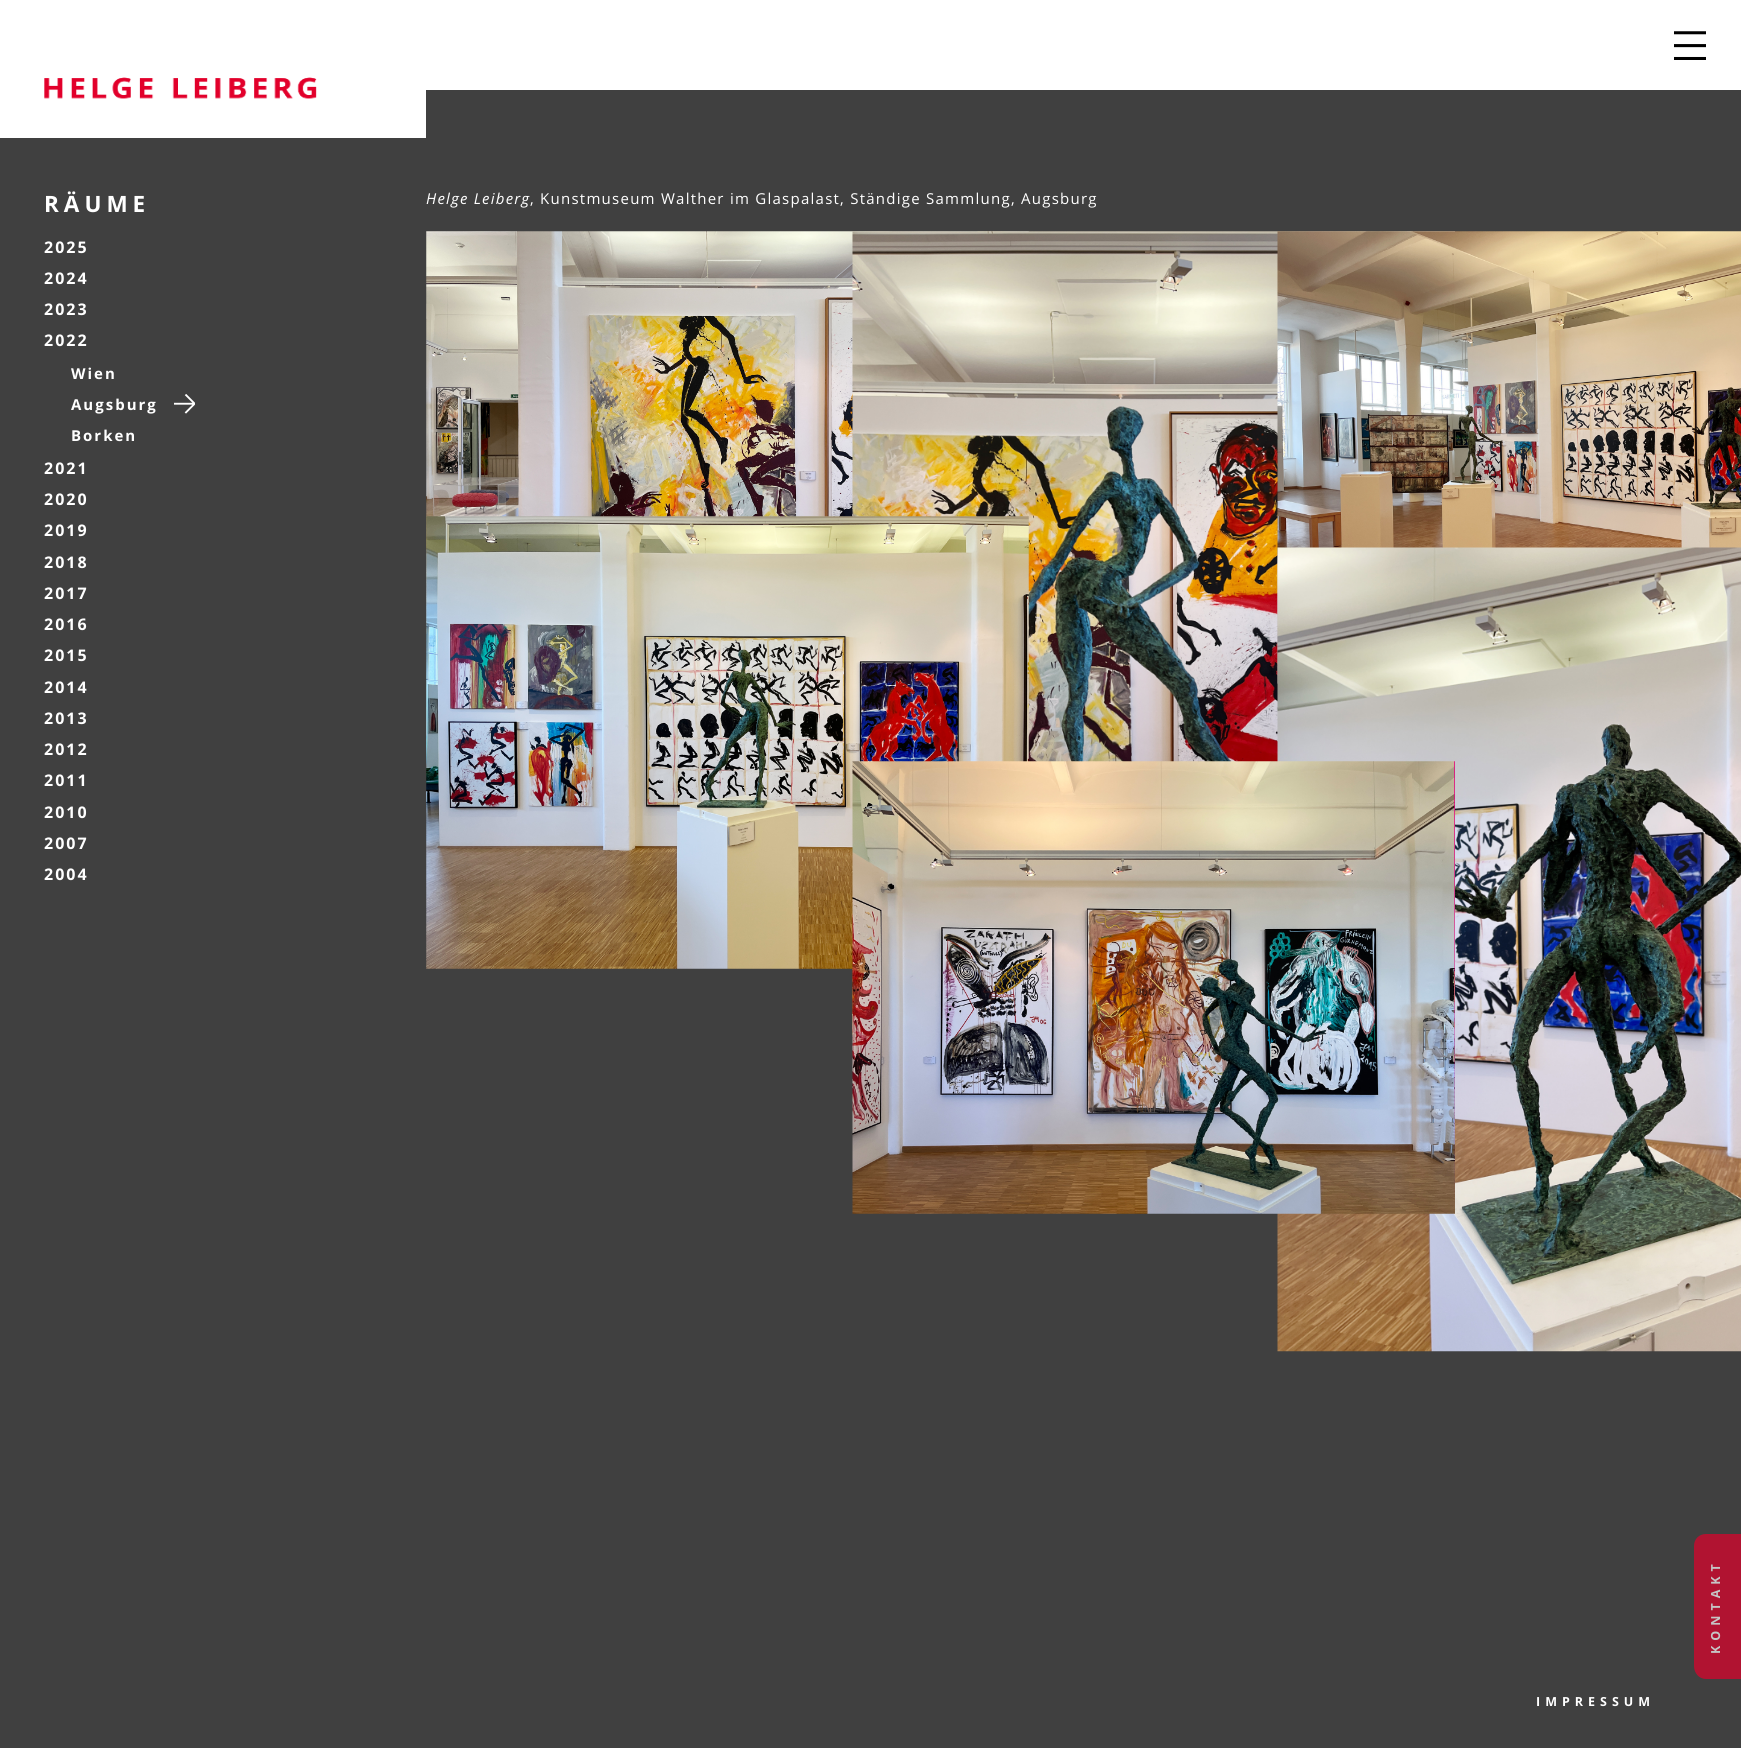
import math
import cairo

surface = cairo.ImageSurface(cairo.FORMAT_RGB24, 1741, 1748)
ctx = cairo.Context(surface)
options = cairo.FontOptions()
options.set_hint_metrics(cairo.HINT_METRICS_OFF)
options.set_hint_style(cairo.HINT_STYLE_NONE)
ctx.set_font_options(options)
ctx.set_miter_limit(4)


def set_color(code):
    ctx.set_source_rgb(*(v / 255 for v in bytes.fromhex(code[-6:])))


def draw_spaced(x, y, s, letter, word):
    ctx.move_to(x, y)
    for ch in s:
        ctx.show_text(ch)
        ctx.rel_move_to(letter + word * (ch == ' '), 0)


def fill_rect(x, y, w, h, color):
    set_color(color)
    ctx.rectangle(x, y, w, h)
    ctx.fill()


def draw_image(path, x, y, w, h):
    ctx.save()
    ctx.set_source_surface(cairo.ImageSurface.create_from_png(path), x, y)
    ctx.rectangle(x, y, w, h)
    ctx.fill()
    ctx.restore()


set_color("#404040")
ctx.paint()
fill_rect(0, 0, 1741, 90, "#ffffff")
draw_image("assets/img1.png", 1674, 31, 32, 29)
fill_rect(0, 90, 426, 48, "#ffffff")
draw_image("assets/img2.png", 44, 77, 273, 22)
ctx.select_font_face("Open Sans", cairo.FONT_SLANT_NORMAL, cairo.FONT_WEIGHT_BOLD)
ctx.set_font_size(22.5)
draw_spaced(44, 212, "RÄUME", 5, 0)
ctx.set_font_size(16)
draw_spaced(44, 253, "2025", 2, 0)
draw_spaced(44, 284, "2024", 2, 0)
draw_spaced(44, 315, "2023", 2, 0)
draw_spaced(44, 346, "2022", 2, 0)
ctx.set_font_size(15)
draw_spaced(71, 379, "Wien", 2, 0)
draw_spaced(71, 410, "Augsburg", 2, 0)
draw_image("assets/img3.png", 174, 394, 21, 20)
draw_spaced(71, 441, "Borken", 2, 0)
ctx.set_font_size(16)
draw_spaced(44, 474, "2021", 2, 0)
draw_spaced(44, 505, "2020", 2, 0)
draw_spaced(44, 536, "2019", 2, 0)
draw_spaced(44, 568, "2018", 2, 0)
draw_spaced(44, 599, "2017", 2, 0)
draw_spaced(44, 630, "2016", 2, 0)
draw_spaced(44, 661, "2015", 2, 0)
draw_spaced(44, 693, "2014", 2, 0)
draw_spaced(44, 724, "2013", 2, 0)
draw_spaced(44, 755, "2012", 2, 0)
draw_spaced(44, 786, "2011", 2, 0)
draw_spaced(44, 818, "2010", 2, 0)
draw_spaced(44, 849, "2007", 2, 0)
draw_spaced(44, 880, "2004", 2, 0)
ctx.select_font_face("Open Sans", cairo.FONT_SLANT_ITALIC)
ctx.set_font_size(15)
draw_spaced(426, 204, "Helge Leiberg", 1.25, 0)
ctx.select_font_face("Open Sans")
draw_spaced(530, 204, ", Kunstmuseum Walther im Glaspalast, Ständige Sammlung, Augsburg", 1.25, 0)
draw_image("assets/img4.png", 426, 231, 603, 403)
draw_image("assets/img5.png", 852, 231, 603, 804)
draw_image("assets/img6.png", 1277, 231, 464, 453)
draw_image("assets/img7.png", 426, 516, 603, 453)
draw_image("assets/img9.png", 1277, 547, 464, 805)
draw_image("assets/img8.png", 852, 761, 603, 453)
set_color("#b11331")
ctx.new_path()
ctx.move_to(1694, 1666)
ctx.line_to(1694, 1546)
ctx.curve_to(1694, 1539, 1699, 1534, 1706, 1534)
ctx.line_to(1741, 1534)
ctx.line_to(1741, 1679)
ctx.line_to(1706, 1679)
ctx.curve_to(1699, 1679, 1694, 1673, 1694, 1666)
ctx.close_path()
ctx.fill()
ctx.select_font_face("Open Sans", cairo.FONT_SLANT_NORMAL, cairo.FONT_WEIGHT_BOLD)
ctx.set_font_size(12.5)
set_color("#c6c6c6")
ctx.save()
ctx.translate(1720, 1654)
ctx.rotate(-90 * math.pi / 180)
draw_spaced(0, 0, "KONTAKT", 5, 0)
ctx.restore()
set_color("#ffffff")
draw_spaced(1536, 1706, "IMPRESSUM", 5, 0)
surface.write_to_png("output.png")
